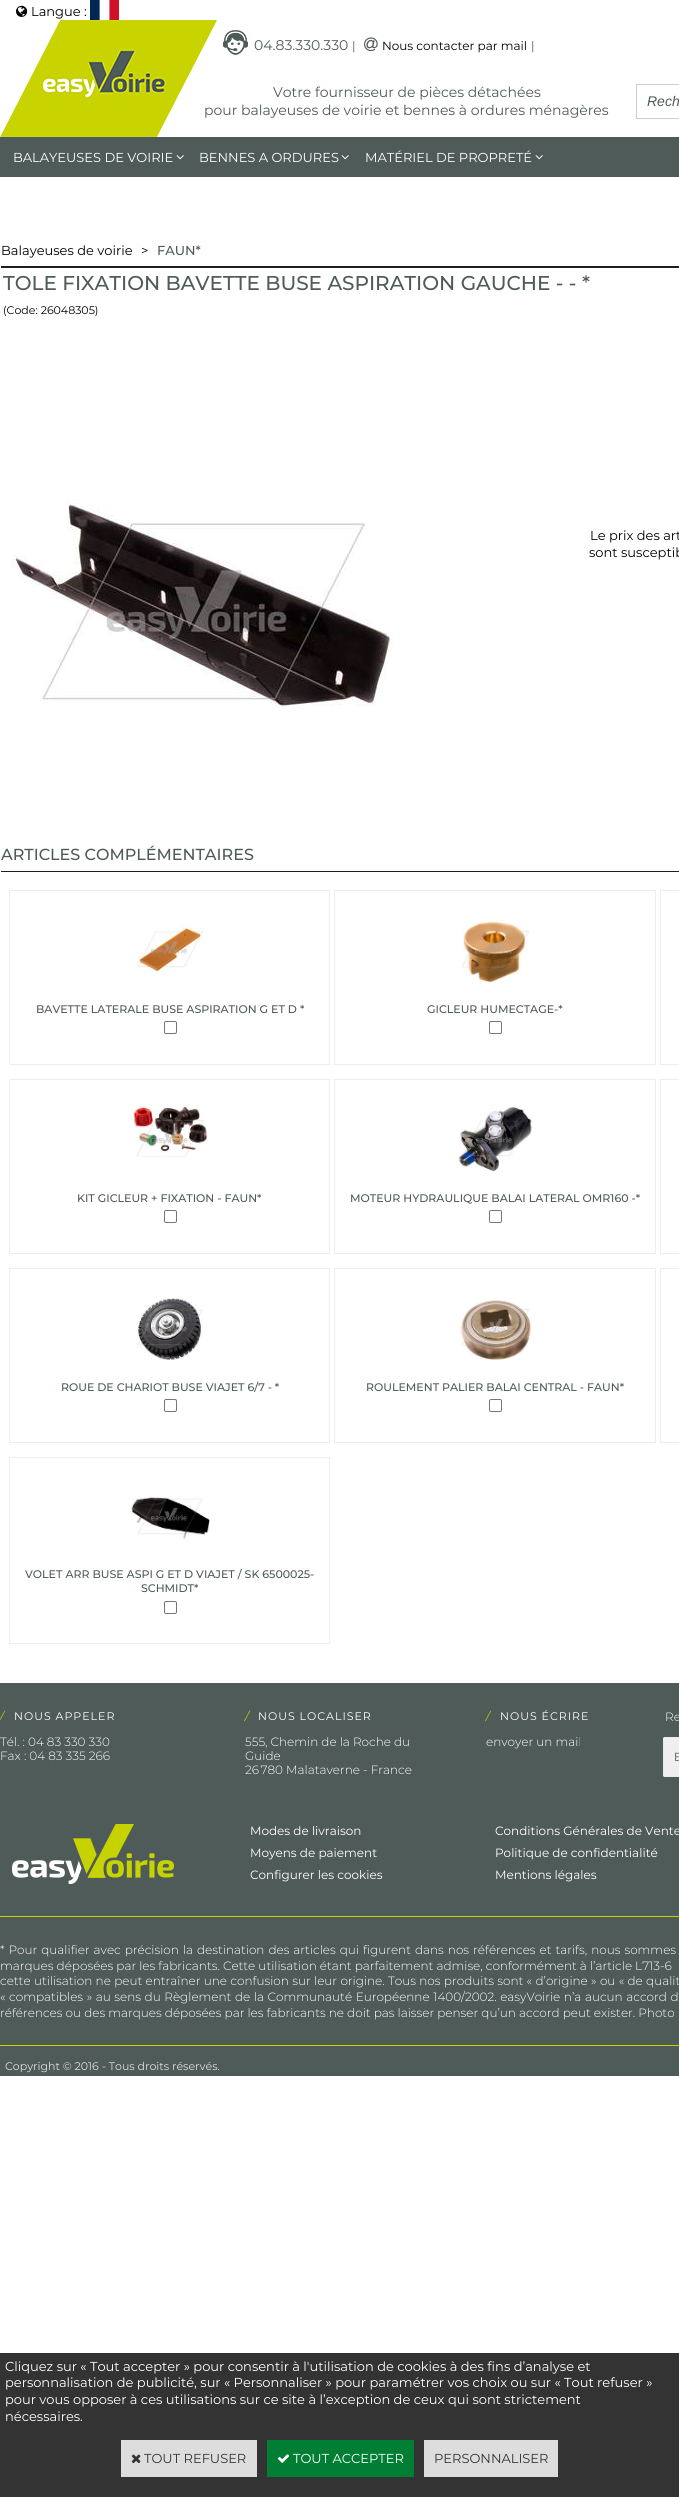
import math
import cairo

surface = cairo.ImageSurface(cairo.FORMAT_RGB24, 679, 2497)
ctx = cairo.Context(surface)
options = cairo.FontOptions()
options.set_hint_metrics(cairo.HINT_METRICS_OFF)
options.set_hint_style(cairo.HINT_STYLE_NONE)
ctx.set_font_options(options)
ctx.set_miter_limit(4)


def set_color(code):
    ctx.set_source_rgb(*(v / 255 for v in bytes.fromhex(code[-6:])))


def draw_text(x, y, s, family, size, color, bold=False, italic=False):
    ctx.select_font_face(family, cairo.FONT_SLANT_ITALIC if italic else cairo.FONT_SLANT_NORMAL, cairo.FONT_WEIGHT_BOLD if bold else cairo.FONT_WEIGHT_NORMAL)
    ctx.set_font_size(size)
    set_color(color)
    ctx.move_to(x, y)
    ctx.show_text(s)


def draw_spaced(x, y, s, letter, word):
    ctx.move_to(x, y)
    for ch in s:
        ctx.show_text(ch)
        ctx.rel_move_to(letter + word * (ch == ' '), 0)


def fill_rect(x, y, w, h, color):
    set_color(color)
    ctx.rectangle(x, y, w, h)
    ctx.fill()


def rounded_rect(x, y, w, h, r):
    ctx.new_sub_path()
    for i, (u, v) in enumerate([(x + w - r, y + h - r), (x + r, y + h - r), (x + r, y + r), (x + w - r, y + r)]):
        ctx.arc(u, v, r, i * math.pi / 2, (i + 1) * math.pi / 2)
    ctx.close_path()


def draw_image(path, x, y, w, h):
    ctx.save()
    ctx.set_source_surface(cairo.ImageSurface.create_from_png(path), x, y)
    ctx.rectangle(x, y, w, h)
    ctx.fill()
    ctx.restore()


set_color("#ffffff")
ctx.paint()
draw_image("assets/img1.png", 16, 5, 12, 12)
draw_text(31, 16, "Langue :", "Montserrat", 13, "#000000")
draw_image("assets/img2.png", 90, 0, 29, 20)
draw_image("assets/img3.png", 0, 20, 217, 117)
draw_image("assets/img4.png", 223, 30, 25, 25)
draw_text(254, 50, "04.83.330.330", "Montserrat", 14, "#4e5b58")
draw_text(352, 50, "|", "Montserrat", 12, "#4e5b58")
draw_image("assets/img5.png", 364, 37, 14, 15)
draw_text(382, 50, "Nous contacter par mail", "Montserrat", 12, "#000000")
draw_text(531, 50, "|", "Montserrat", 12, "#4e5b58")
draw_text(273, 97, "Votre fournisseur de pièces détachées", "Montserrat", 14, "#4e5b58")
draw_text(204, 115, "pour balayeuses de voirie et bennes à ordures ménagères", "Montserrat", 14, "#4e5b58")
ctx.rectangle(636.5, 84.5, 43, 34)
set_color("#cccccc")
ctx.set_line_width(1)
ctx.stroke()
draw_text(647, 106, "Rech", "Liberation Sans", 14, "#4e5b58", italic=True)
fill_rect(0, 137, 679, 40, "#4e5b58")
draw_text(13, 162, "BALAYEUSES DE VOIRIE", "Montserrat", 13, "#ffffff")
draw_image("assets/img6.png", 176, 155, 8, 5)
draw_text(199, 162, "BENNES A ORDURES", "Montserrat", 13, "#ffffff")
draw_image("assets/img6.png", 341, 155, 8, 5)
draw_text(365, 162, "MATÉRIEL DE PROPRETÉ", "Montserrat", 13, "#ffffff")
draw_image("assets/img6.png", 535, 155, 8, 5)
draw_text(1, 255, "Balayeuses de voirie", "Montserrat", 13, "#000000")
draw_text(141, 255, ">", "Montserrat", 13, "#000000")
draw_text(157, 255, "FAUN*", "Montserrat Medium", 13, "#4e5b58")
fill_rect(1, 266, 678, 2, "#221e1f")
draw_text(3, 290, "TOLE FIXATION BAVETTE BUSE ASPIRATION GAUCHE - - *", "Montserrat Medium", 20, "#4e5b58")
draw_text(3, 314, "(Code: 26048305)", "Montserrat", 11, "#000000")
draw_image("assets/img7.png", 11, 499, 383, 208)
draw_text(590, 540, "Le prix des art", "Montserrat", 13, "#000000")
draw_text(589, 557, "sont susceptib", "Montserrat", 13, "#000000")
fill_rect(1, 871, 678, 1, "#221e1f")
draw_text(1, 860, "ARTICLES COMPLÉMENTAIRES", "Montserrat Medium", 16, "#4e5b58")
ctx.rectangle(9.5, 890.5, 320, 174)
set_color("#eeeeee")
ctx.stroke()
draw_image("assets/img8.png", 137, 923, 67, 52)
draw_text(36, 1013, "BAVETTE LATERALE BUSE ASPIRATION G ET D *", "Montserrat Medium", 11, "#4e5b58")
rounded_rect(164.5, 1021.5, 12, 12, 1.5)
set_color("#767676")
ctx.stroke()
ctx.rectangle(334.5, 890.5, 321, 174)
set_color("#eeeeee")
ctx.stroke()
draw_image("assets/img9.png", 461, 918, 68, 65)
draw_text(427, 1013, "GICLEUR HUMECTAGE-*", "Montserrat Medium", 11, "#4e5b58")
rounded_rect(489.5, 1021.5, 12, 12, 1.5)
set_color("#767676")
ctx.stroke()
ctx.rectangle(660.5, 890.5, 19, 174)
set_color("#eeeeee")
ctx.stroke()
ctx.rectangle(9.5, 1079.5, 320, 174)
ctx.stroke()
draw_image("assets/img10.png", 130, 1105, 80, 52)
draw_text(77, 1202, "KIT GICLEUR + FIXATION - FAUN*", "Montserrat Medium", 11, "#4e5b58")
rounded_rect(164.5, 1210.5, 12, 12, 1.5)
set_color("#767676")
ctx.stroke()
ctx.rectangle(334.5, 1079.5, 321, 174)
set_color("#eeeeee")
ctx.stroke()
draw_image("assets/img11.png", 458, 1105, 74, 67)
draw_text(350, 1202, "MOTEUR HYDRAULIQUE BALAI LATERAL OMR160 -*", "Montserrat Medium", 11, "#4e5b58")
rounded_rect(489.5, 1210.5, 12, 12, 1.5)
set_color("#767676")
ctx.stroke()
ctx.rectangle(660.5, 1079.5, 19, 174)
set_color("#eeeeee")
ctx.stroke()
ctx.rectangle(9.5, 1268.5, 320, 174)
ctx.stroke()
draw_image("assets/img12.png", 137, 1298, 66, 62)
draw_text(61, 1391, "ROUE DE CHARIOT BUSE VIAJET 6/7 - *", "Montserrat Medium", 11, "#4e5b58")
rounded_rect(164.5, 1399.5, 12, 12, 1.5)
set_color("#767676")
ctx.stroke()
ctx.rectangle(334.5, 1268.5, 321, 174)
set_color("#eeeeee")
ctx.stroke()
draw_image("assets/img13.png", 460, 1298, 72, 63)
draw_text(366, 1391, "ROULEMENT PALIER BALAI CENTRAL - FAUN*", "Montserrat Medium", 11, "#4e5b58")
rounded_rect(489.5, 1399.5, 12, 12, 1.5)
set_color("#767676")
ctx.stroke()
ctx.rectangle(660.5, 1268.5, 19, 174)
set_color("#eeeeee")
ctx.stroke()
ctx.rectangle(9.5, 1457.5, 320, 186)
ctx.stroke()
draw_image("assets/img14.png", 130, 1495, 80, 45)
draw_text(25, 1578, "VOLET ARR BUSE ASPI G ET D VIAJET / SK 6500025-", "Montserrat Medium", 11, "#4e5b58")
draw_text(141, 1592, "SCHMIDT*", "Montserrat Medium", 11, "#4e5b58")
rounded_rect(164.5, 1601.5, 12, 12, 1.5)
set_color("#767676")
ctx.stroke()
fill_rect(0, 1683, 679, 393, "#4e5b58")
ctx.select_font_face("Montserrat", cairo.FONT_SLANT_ITALIC)
set_color("#c8d300")
draw_spaced(0, 1720, "/", 1, 0)
ctx.select_font_face("Montserrat")
set_color("#ffffff")
draw_spaced(14, 1720, "NOUS APPELER", 1, 0)
draw_text(0, 1746, "Tél. : 04 83 330 330", "Montserrat Light", 12, "#ffffff")
draw_text(0, 1760, "Fax : 04 83 335 266", "Montserrat Light", 12, "#ffffff")
ctx.select_font_face("Montserrat", cairo.FONT_SLANT_ITALIC)
ctx.set_font_size(11)
set_color("#c8d300")
draw_spaced(245, 1720, "/", 1, 0)
ctx.select_font_face("Montserrat")
set_color("#ffffff")
draw_spaced(258, 1720, "NOUS LOCALISER", 1, 0)
draw_text(245, 1746, "555, Chemin de la Roche du", "Montserrat Light", 12, "#ffffff")
draw_text(245, 1760, "Guide", "Montserrat Light", 12, "#ffffff")
draw_text(245, 1774, "26 780 Malataverne - France", "Montserrat Light", 12, "#ffffff")
ctx.select_font_face("Montserrat", cairo.FONT_SLANT_ITALIC)
ctx.set_font_size(11)
set_color("#c8d300")
draw_spaced(486, 1720, "/", 1, 0)
ctx.select_font_face("Montserrat")
set_color("#ffffff")
draw_spaced(500, 1720, "NOUS ÉCRIRE", 1, 0)
draw_text(486, 1746, "envoyer un mail", "Montserrat Light", 12, "#ffffff")
draw_text(665, 1721, "Re", "Montserrat Light", 12, "#ffffff")
set_color("#efefef")
ctx.new_path()
ctx.move_to(665, 1737)
ctx.line_to(679, 1737)
ctx.line_to(679, 1777)
ctx.line_to(665, 1777)
ctx.curve_to(664, 1777, 663, 1776, 663, 1775)
ctx.line_to(663, 1739)
ctx.curve_to(663, 1738, 664, 1737, 665, 1737)
ctx.close_path()
ctx.fill()
rounded_rect(663.5, 1737.5, 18, 39, 1.5)
set_color("#ebebeb")
ctx.stroke()
draw_text(674, 1761, "E", "Liberation Sans", 12, "#757575")
draw_image("assets/img15.png", 5, 1824, 169, 60)
draw_text(250, 1835, "Modes de livraison", "Montserrat", 12, "#ffffff")
draw_text(250, 1857, "Moyens de paiement", "Montserrat", 12, "#ffffff")
draw_text(250, 1879, "Configurer les cookies", "Montserrat", 12, "#ffffff")
draw_text(495, 1835, "Conditions Générales de Vente", "Montserrat", 12, "#ffffff")
draw_text(495, 1857, "Politique de confidentialité", "Montserrat", 12, "#ffffff")
draw_text(495, 1879, "Mentions légales", "Montserrat", 12, "#ffffff")
fill_rect(0, 1916, 679, 1, "#c8d300")
fill_rect(0, 2045, 679, 1, "#c8d300")
ctx.select_font_face("Montserrat Light")
set_color("#ffffff")
draw_spaced(0, 1954, "* Pour qualifier avec précision la destination des articles qui figurent dans nos références et tarifs, nous sommes", 0, 0.9)
draw_text(0, 1970, "marques déposées par les fabricants. Cette utilisation étant parfaitement admise, conformément à l’article L713-6", "Montserrat Light", 12, "#ffffff")
draw_spaced(0, 1985, "cette utilisation ne peut entraîner une confusion sur leur origine. Tous nos produits sont « d’origine » ou « de qualit", 0, 0.25)
draw_spaced(0, 2001, "« compatibles » au sens du Règlement de la Communauté Européenne 1400/2002. easyVoirie n’a aucun accord d", 0, 0.5)
draw_text(0, 2017, "références ou des marques déposées par les fabricants ne doit pas laisser penser qu’un accord peut exister. Photo", "Montserrat Light", 12, "#ffffff")
draw_text(5, 2070, "Copyright © 2016 - Tous droits réservés.", "Montserrat", 11, "#dcdede")
fill_rect(0, 2353, 679, 144, "#333333")
draw_text(5, 2371, "Cliquez sur « Tout accepter » pour consentir à l'utilisation de cookies à des fins d’analyse et", "Montserrat", 13, "#ffffff")
draw_text(5, 2387, "personnalisation de publicité, sur « Personnaliser » pour paramétrer vos choix ou sur « Tout refuser »", "Montserrat", 13, "#ffffff")
draw_text(5, 2404, "pour vous opposer à ces utilisations sur ce site à l’exception de ceux qui sont strictement", "Montserrat", 13, "#ffffff")
draw_text(5, 2421, "nécessaires.", "Montserrat", 13, "#ffffff")
fill_rect(121, 2440, 136, 37, "#dddddd")
draw_image("assets/img16.png", 131, 2454, 10, 10)
draw_text(144, 2463, "TOUT REFUSER", "Montserrat", 13, "#333333")
fill_rect(267, 2440, 147, 37, "#007e33")
draw_image("assets/img17.png", 277, 2454, 13, 9)
draw_text(293, 2463, "TOUT ACCEPTER", "Montserrat", 13, "#ffffff")
fill_rect(424, 2440, 134, 37, "#dddddd")
draw_text(434, 2463, "PERSONNALISER", "Montserrat", 13, "#333333")
surface.write_to_png("output.png")
